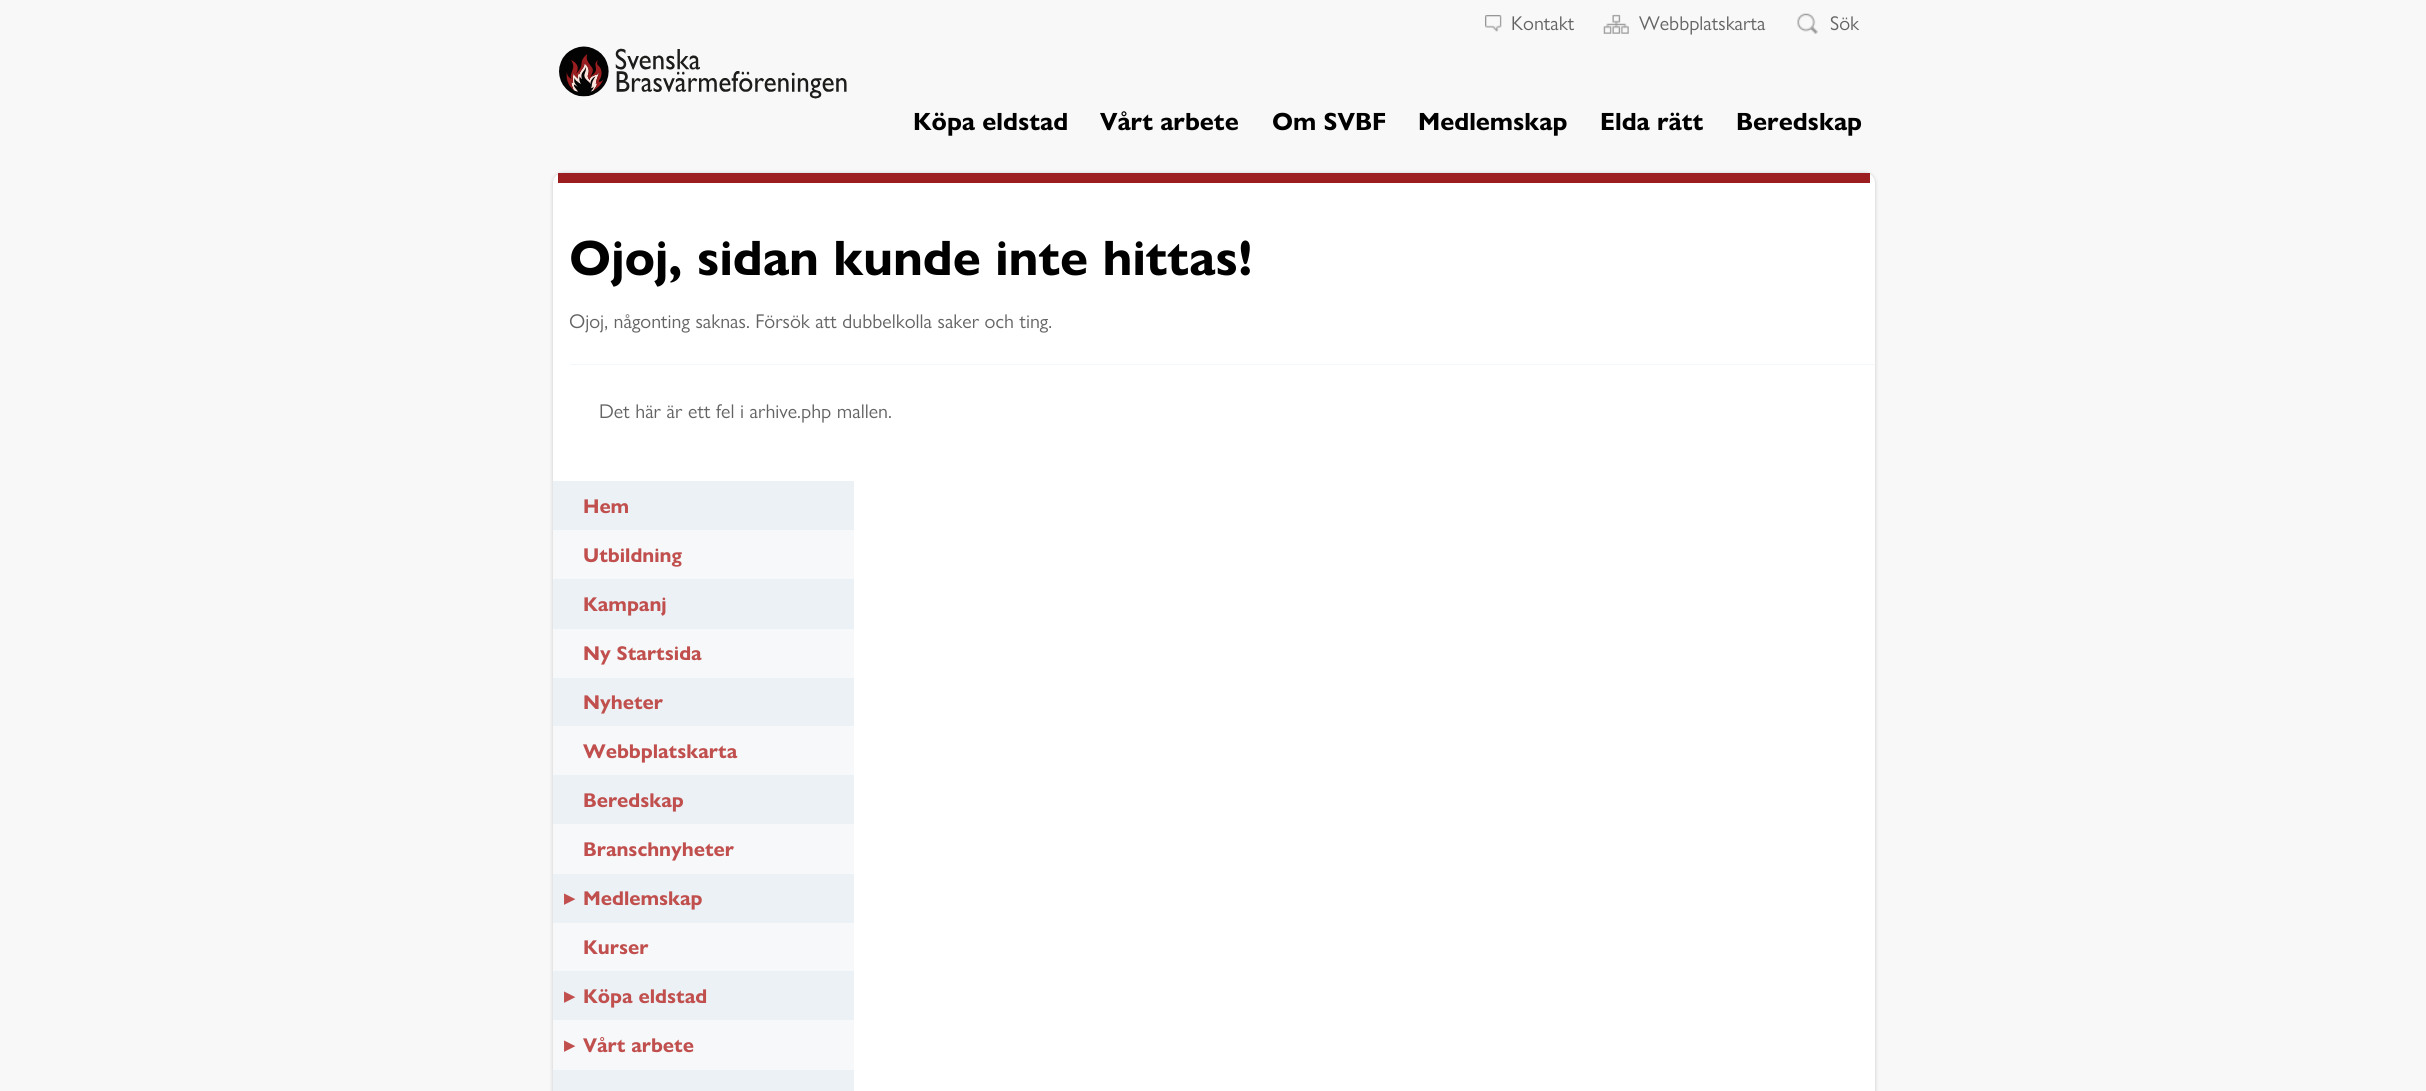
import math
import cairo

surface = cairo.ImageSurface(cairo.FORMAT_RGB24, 2426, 1091)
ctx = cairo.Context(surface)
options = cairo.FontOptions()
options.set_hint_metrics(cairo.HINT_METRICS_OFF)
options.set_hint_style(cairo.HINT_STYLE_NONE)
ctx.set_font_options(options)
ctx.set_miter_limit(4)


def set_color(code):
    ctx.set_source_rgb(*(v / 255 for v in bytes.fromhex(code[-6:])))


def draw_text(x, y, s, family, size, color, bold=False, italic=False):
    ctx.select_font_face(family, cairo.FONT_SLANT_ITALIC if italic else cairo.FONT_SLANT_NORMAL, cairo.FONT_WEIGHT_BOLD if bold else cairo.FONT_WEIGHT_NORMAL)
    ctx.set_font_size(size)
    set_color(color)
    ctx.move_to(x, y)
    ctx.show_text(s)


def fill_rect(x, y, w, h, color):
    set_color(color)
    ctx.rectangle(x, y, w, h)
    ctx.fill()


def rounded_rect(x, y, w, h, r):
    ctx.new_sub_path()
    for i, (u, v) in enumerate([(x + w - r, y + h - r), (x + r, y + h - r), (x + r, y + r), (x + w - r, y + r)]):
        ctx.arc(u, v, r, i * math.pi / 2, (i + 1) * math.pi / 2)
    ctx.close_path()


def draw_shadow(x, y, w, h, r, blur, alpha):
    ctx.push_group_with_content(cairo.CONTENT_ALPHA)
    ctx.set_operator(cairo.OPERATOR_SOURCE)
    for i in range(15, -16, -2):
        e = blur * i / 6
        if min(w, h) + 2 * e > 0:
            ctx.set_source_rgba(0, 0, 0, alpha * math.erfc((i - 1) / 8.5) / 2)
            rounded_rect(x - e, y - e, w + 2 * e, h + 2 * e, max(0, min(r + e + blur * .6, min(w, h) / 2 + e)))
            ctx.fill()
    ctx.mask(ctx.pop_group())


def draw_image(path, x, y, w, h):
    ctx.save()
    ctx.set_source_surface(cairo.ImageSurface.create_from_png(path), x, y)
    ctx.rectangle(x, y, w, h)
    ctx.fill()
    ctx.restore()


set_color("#f8f8f8")
ctx.paint()
draw_image("assets/img1.png", 559, 46, 288, 53)
draw_image("assets/img2.png", 1485, 15, 17, 17)
draw_text(1511, 30, "Kontakt", "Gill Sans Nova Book", 20, "#646464")
draw_image("assets/img3.png", 1603, 14, 26, 20)
draw_text(1639, 30, "Webbplatskarta", "Gill Sans Nova Book", 20, "#646464")
draw_image("assets/img4.png", 1797, 13, 21, 21)
draw_text(1830, 30, "Sök", "Gill Sans Nova Book", 20, "#646464")
draw_text(913, 130, "Köpa eldstad", "Gill Sans Nova Book", 25, "#000000", bold=True)
draw_text(1100, 130, "Vårt arbete", "Gill Sans Nova Book", 25, "#000000", bold=True)
draw_text(1272, 130, "Om SVBF", "Gill Sans Nova Book", 25, "#000000", bold=True)
draw_text(1418, 130, "Medlemskap", "Gill Sans Nova Book", 25, "#000000", bold=True)
draw_text(1600, 130, "Elda rätt", "Gill Sans Nova Book", 25, "#000000", bold=True)
draw_text(1736, 130, "Beredskap", "Gill Sans Nova Book", 25, "#000000", bold=True)
set_color("#000000")
draw_shadow(553, 173, 1322, 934, 10, 2, 0.2)
set_color("#ffffff")
rounded_rect(553, 173, 1322, 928, 10)
ctx.fill()
fill_rect(558, 173, 1312, 10, "#9c1d1f")
draw_text(569, 275, "Ojoj, sidan kunde inte hittas!", "Gill Sans Nova Book", 50, "#000000", bold=True)
draw_text(569, 328, "Ojoj, någonting saknas. Försök att dubbelkolla saker och ting.", "Gill Sans Nova Book", 20, "#646464")
fill_rect(570, 364, 1305, 1, "#f5f8fa")
draw_text(599, 418, "Det här är ett fel i arhive.php mallen.", "Gill Sans Nova Book", 20, "#646464")
fill_rect(553, 481, 301, 49, "#ecf1f5")
draw_text(583, 513, "Hem", "Gill Sans Nova Book", 20, "#c04f4d", bold=True)
fill_rect(553, 530, 301, 49, "#f6f8fa")
draw_text(583, 562, "Utbildning", "Gill Sans Nova Book", 20, "#c04f4d", bold=True)
fill_rect(553, 579, 301, 50, "#ecf1f5")
draw_text(583, 611, "Kampanj", "Gill Sans Nova Book", 20, "#c04f4d", bold=True)
fill_rect(553, 629, 301, 49, "#f6f8fa")
draw_text(583, 660, "Ny Startsida", "Gill Sans Nova Book", 20, "#c04f4d", bold=True)
fill_rect(553, 678, 301, 48, "#ecf1f5")
draw_text(583, 709, "Nyheter", "Gill Sans Nova Book", 20, "#c04f4d", bold=True)
fill_rect(553, 726, 301, 49, "#f6f8fa")
draw_text(583, 758, "Webbplatskarta", "Gill Sans Nova Book", 20, "#c04f4d", bold=True)
fill_rect(553, 775, 301, 49, "#ecf1f5")
draw_text(583, 807, "Beredskap", "Gill Sans Nova Book", 20, "#c04f4d", bold=True)
fill_rect(553, 824, 301, 50, "#f6f8fa")
draw_text(583, 856, "Branschnyheter", "Gill Sans Nova Book", 20, "#c04f4d", bold=True)
fill_rect(553, 874, 301, 49, "#ecf1f5")
draw_text(564, 903, "▶", "DejaVu Sans", 14, "#c04f4d", bold=True)
draw_text(583, 905, "Medlemskap", "Gill Sans Nova Book", 20, "#c04f4d", bold=True)
fill_rect(553, 923, 301, 48, "#f6f8fa")
draw_text(583, 954, "Kurser", "Gill Sans Nova Book", 20, "#c04f4d", bold=True)
fill_rect(553, 971, 301, 49, "#ecf1f5")
draw_text(564, 1001, "▶", "DejaVu Sans", 14, "#c04f4d", bold=True)
draw_text(583, 1003, "Köpa eldstad", "Gill Sans Nova Book", 20, "#c04f4d", bold=True)
fill_rect(553, 1020, 301, 50, "#f6f8fa")
draw_text(564, 1050, "▶", "DejaVu Sans", 14, "#c04f4d", bold=True)
draw_text(583, 1052, "Vårt arbete", "Gill Sans Nova Book", 20, "#c04f4d", bold=True)
fill_rect(553, 1070, 301, 21, "#ecf1f5")
surface.write_to_png("output.png")
